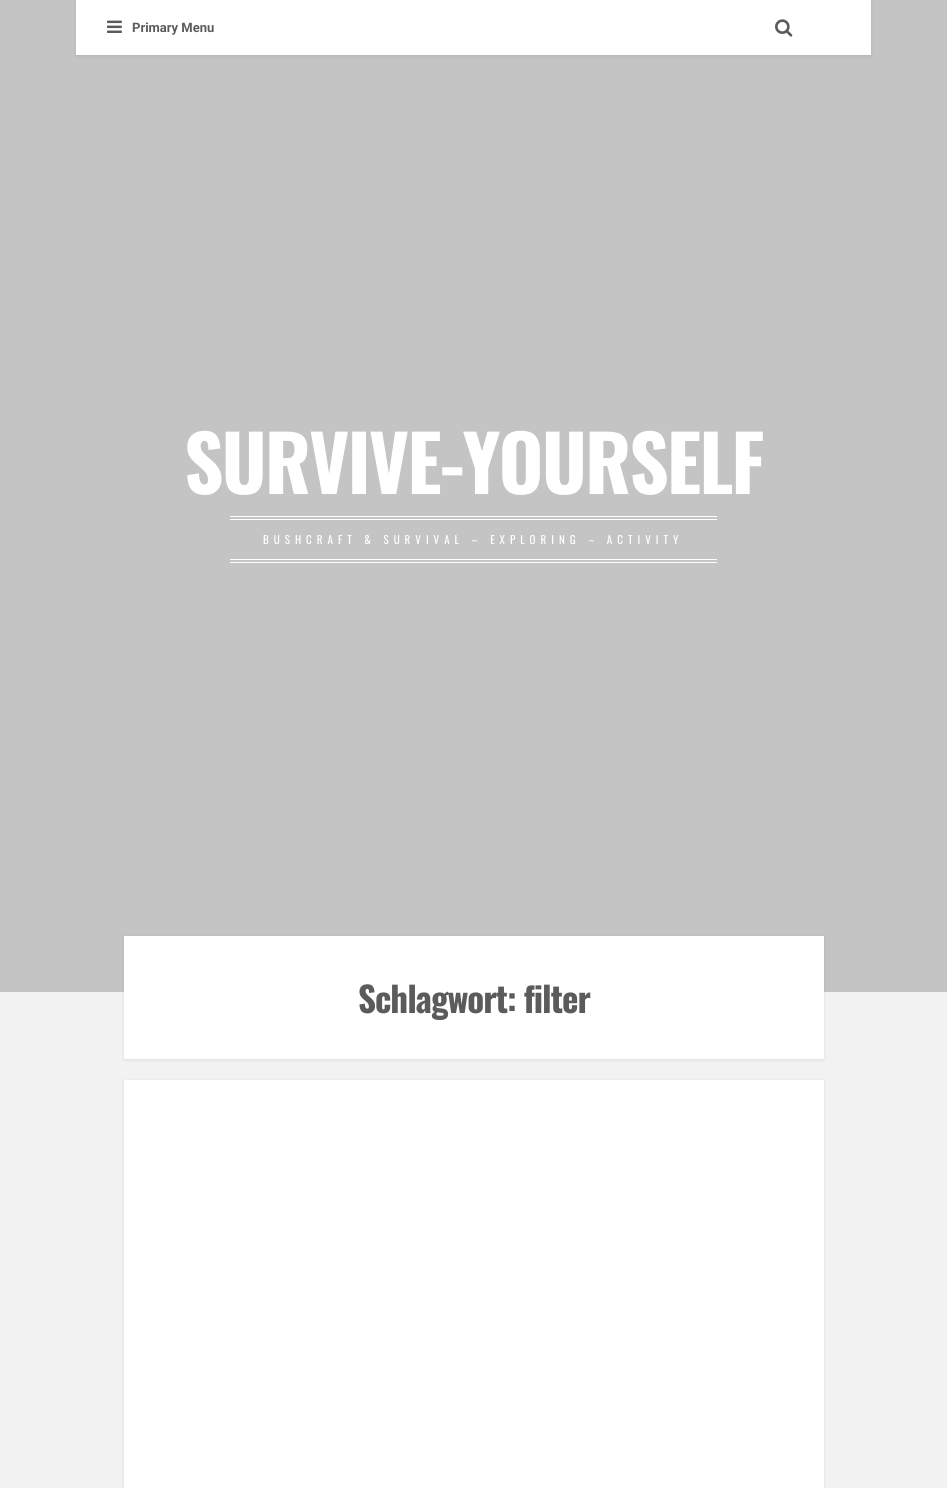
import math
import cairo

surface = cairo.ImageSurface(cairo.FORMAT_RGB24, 947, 1488)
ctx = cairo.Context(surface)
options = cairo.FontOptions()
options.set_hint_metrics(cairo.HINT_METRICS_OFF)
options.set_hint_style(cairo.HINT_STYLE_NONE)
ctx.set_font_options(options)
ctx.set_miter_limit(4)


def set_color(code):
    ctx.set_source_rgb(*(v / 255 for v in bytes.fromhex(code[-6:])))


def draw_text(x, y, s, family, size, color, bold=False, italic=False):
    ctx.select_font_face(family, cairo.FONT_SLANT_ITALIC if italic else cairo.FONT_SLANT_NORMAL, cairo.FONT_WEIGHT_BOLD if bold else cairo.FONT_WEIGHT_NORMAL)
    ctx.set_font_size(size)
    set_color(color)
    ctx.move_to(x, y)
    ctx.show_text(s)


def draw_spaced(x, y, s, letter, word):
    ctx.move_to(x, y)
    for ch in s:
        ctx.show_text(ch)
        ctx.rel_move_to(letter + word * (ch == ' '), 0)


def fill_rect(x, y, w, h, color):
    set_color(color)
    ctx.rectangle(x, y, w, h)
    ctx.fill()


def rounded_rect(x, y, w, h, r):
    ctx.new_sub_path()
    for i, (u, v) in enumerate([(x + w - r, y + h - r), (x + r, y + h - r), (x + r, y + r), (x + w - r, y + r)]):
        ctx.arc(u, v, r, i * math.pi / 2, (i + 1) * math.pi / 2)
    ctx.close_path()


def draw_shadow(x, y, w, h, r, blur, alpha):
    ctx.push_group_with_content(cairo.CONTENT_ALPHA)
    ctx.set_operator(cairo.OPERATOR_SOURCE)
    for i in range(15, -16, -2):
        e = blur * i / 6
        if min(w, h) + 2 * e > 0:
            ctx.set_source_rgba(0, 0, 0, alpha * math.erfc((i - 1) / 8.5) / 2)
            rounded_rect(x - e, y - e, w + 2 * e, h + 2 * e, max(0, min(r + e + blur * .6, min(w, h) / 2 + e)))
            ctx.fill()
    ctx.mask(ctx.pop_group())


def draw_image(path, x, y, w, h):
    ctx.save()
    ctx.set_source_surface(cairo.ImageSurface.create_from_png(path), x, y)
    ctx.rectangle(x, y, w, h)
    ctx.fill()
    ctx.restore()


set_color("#f2f2f2")
ctx.paint()
fill_rect(0, 0, 947, 992, "#c4c4c4")
set_color("#0d0d0d")
draw_shadow(76, 1, 795, 55, 0, 1.5, 0.1)
fill_rect(76, 0, 795, 55, "#ffffff")
draw_image("assets/img1.png", 107, 20, 15, 13)
draw_text(132, 32, "Primary Menu", "Roboto", 13, "#5b5b5b", bold=True)
draw_image("assets/img2.png", 775, 19, 18, 18)
ctx.select_font_face("Oswald", cairo.FONT_SLANT_NORMAL, cairo.FONT_WEIGHT_BOLD)
ctx.set_font_size(77)
set_color("#ffffff")
draw_spaced(184, 494, "SURVIVE-YOURSELF", -2, 0)
fill_rect(230, 516, 487, 1, "#ffffff")
fill_rect(230, 519, 487, 1, "#ffffff")
fill_rect(230, 559, 487, 1, "#ffffff")
fill_rect(230, 562, 487, 1, "#ffffff")
ctx.select_font_face("Oswald")
ctx.set_font_size(11)
draw_spaced(263, 544, "BUSHCRAFT & SURVIVAL – EXPLORING – ACTIVITY", 5, 0)
set_color("#0d0d0d")
draw_shadow(124, 937, 700, 123, 0, 1.5, 0.1)
fill_rect(124, 936, 700, 123, "#ffffff")
ctx.select_font_face("Oswald", cairo.FONT_SLANT_NORMAL, cairo.FONT_WEIGHT_BOLD)
ctx.set_font_size(35)
set_color("#5b5b5b")
draw_spaced(358, 1013, "Schlagwort: filter", -1, 0)
set_color("#0d0d0d")
draw_shadow(124, 1081, 700, 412, 0, 1.5, 0.1)
fill_rect(124, 1080, 700, 408, "#ffffff")
surface.write_to_png("output.png")
